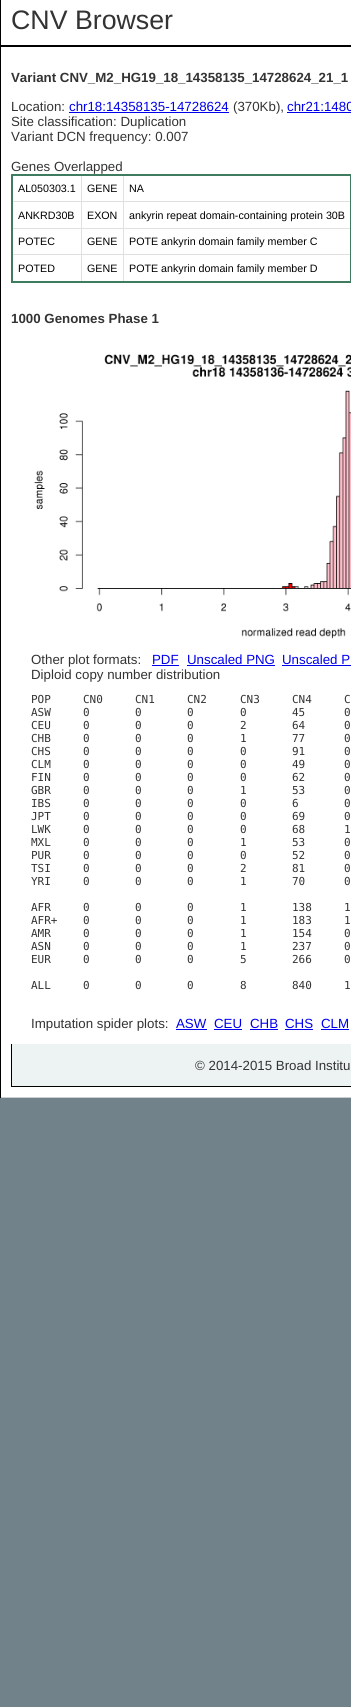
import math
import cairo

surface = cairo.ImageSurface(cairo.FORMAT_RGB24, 351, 1707)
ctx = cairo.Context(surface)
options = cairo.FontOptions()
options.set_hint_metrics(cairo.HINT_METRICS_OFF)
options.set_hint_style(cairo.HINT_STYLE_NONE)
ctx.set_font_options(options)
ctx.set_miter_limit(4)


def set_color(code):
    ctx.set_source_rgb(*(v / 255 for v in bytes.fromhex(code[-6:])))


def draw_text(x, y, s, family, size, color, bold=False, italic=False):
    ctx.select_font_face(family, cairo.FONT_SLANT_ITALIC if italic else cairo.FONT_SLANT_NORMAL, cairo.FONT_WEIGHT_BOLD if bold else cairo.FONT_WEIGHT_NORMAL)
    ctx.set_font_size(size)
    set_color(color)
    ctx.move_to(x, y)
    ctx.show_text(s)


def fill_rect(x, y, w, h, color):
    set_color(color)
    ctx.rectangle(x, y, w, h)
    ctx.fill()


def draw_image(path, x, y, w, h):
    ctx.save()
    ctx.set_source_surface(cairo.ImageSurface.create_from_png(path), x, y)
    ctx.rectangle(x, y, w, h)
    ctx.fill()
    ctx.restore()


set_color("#71828a")
ctx.paint()
fill_rect(1, 0, 350, 45, "#ffffff")
fill_rect(0, 45, 351, 2, "#000000")
fill_rect(0, 0, 1, 46, "#000000")
draw_text(11, 29, "CNV Browser", "Liberation Sans", 26.75, "#333333")
fill_rect(1, 47, 350, 1050, "#ffffff")
fill_rect(0, 1097, 351, 1, "#c9cfd1")
fill_rect(0, 46, 1, 1052, "#000000")
draw_text(11, 82, "Variant CNV_M2_HG19_18_14358135_14728624_21_1", "Liberation Sans", 13.3, "#333333", bold=True)
draw_text(11, 111, "Location:", "Liberation Sans", 13.3, "#333333")
draw_text(69, 111, "chr18:14358135-14728624", "Liberation Sans", 13.3, "#0000ee")
fill_rect(69, 112, 160, 1, "#0000ee")
draw_text(233, 111, "(370Kb),", "Liberation Sans", 13.3, "#333333")
draw_text(287, 111, "chr21:1480", "Liberation Sans", 13.3, "#0000ee")
fill_rect(287, 112, 64, 1, "#0000ee")
draw_text(11, 126, "Site classification: Duplication", "Liberation Sans", 13.3, "#333333")
draw_text(11, 141, "Variant DCN frequency: 0.007", "Liberation Sans", 13.3, "#333333")
draw_text(11, 171, "Genes Overlapped", "Liberation Sans", 13.3, "#333333")
fill_rect(123, 201, 228, 1, "#e0e0e0")
fill_rect(123, 228, 228, 1, "#e0e0e0")
fill_rect(123, 254, 228, 1, "#e0e0e0")
fill_rect(123, 254, 1, 29, "#e0e0e0")
fill_rect(81, 254, 43, 1, "#e0e0e0")
fill_rect(123, 228, 1, 27, "#e0e0e0")
fill_rect(81, 228, 43, 1, "#e0e0e0")
fill_rect(123, 201, 1, 28, "#e0e0e0")
fill_rect(81, 201, 43, 1, "#e0e0e0")
fill_rect(81, 254, 1, 29, "#e0e0e0")
fill_rect(12, 254, 70, 1, "#e0e0e0")
fill_rect(81, 228, 1, 27, "#e0e0e0")
fill_rect(12, 228, 70, 1, "#e0e0e0")
fill_rect(81, 201, 1, 28, "#e0e0e0")
fill_rect(12, 201, 70, 1, "#e0e0e0")
fill_rect(81, 174, 1, 28, "#e0e0e0")
fill_rect(123, 174, 1, 28, "#e0e0e0")
fill_rect(11, 174, 340, 2, "#3f7c5f")
fill_rect(350, 174, 1, 109, "#3f7c5f")
fill_rect(11, 281, 340, 2, "#3f7c5f")
fill_rect(11, 174, 2, 109, "#3f7c5f")
draw_text(18, 192, "AL050303.1", "Liberation Sans", 10.7, "#000000")
draw_text(87, 192, "GENE", "Liberation Sans", 10.7, "#000000")
draw_text(129, 192, "NA", "Liberation Sans", 10.7, "#000000")
draw_text(18, 219, "ANKRD30B", "Liberation Sans", 10.7, "#000000")
draw_text(87, 219, "EXON", "Liberation Sans", 10.7, "#000000")
draw_text(129, 219, "ankyrin repeat domain-containing protein 30B", "Liberation Sans", 10.7, "#000000")
draw_text(18, 245, "POTEC", "Liberation Sans", 10.7, "#000000")
draw_text(87, 245, "GENE", "Liberation Sans", 10.7, "#000000")
draw_text(129, 245, "POTE ankyrin domain family member C", "Liberation Sans", 10.7, "#000000")
draw_text(18, 272, "POTED", "Liberation Sans", 10.7, "#000000")
draw_text(87, 272, "GENE", "Liberation Sans", 10.7, "#000000")
draw_text(129, 272, "POTE ankyrin domain family member D", "Liberation Sans", 10.7, "#000000")
draw_text(11, 323, "1000 Genomes Phase 1", "Liberation Sans", 13.3, "#333333", bold=True)
draw_image("assets/img1.png", 34, 354, 317, 285)
draw_text(31, 664, "Other plot formats:", "Liberation Sans", 13.3, "#333333")
draw_text(152, 664, "PDF", "Liberation Sans", 13.3, "#0000ee")
fill_rect(152, 665, 27, 1, "#0000ee")
draw_text(187, 664, "Unscaled PNG", "Liberation Sans", 13.3, "#0000ee")
fill_rect(187, 665, 88, 1, "#0000ee")
draw_text(282, 664, "Unscaled P", "Liberation Sans", 13.3, "#0000ee")
fill_rect(282, 665, 69, 1, "#0000ee")
draw_text(31, 679, "Diploid copy number distribution", "Liberation Sans", 13.3, "#333333")
draw_text(31, 703, "POP", "DejaVu Sans Mono", 11, "#333333")
draw_text(83, 703, "CN0", "DejaVu Sans Mono", 11, "#333333")
draw_text(135, 703, "CN1", "DejaVu Sans Mono", 11, "#333333")
draw_text(187, 703, "CN2", "DejaVu Sans Mono", 11, "#333333")
draw_text(240, 703, "CN3", "DejaVu Sans Mono", 11, "#333333")
draw_text(292, 703, "CN4", "DejaVu Sans Mono", 11, "#333333")
draw_text(344, 703, "C", "DejaVu Sans Mono", 11, "#333333")
draw_text(31, 716, "ASW", "DejaVu Sans Mono", 11, "#333333")
draw_text(83, 716, "0", "DejaVu Sans Mono", 11, "#333333")
draw_text(135, 716, "0", "DejaVu Sans Mono", 11, "#333333")
draw_text(187, 716, "0", "DejaVu Sans Mono", 11, "#333333")
draw_text(240, 716, "0", "DejaVu Sans Mono", 11, "#333333")
draw_text(292, 716, "45", "DejaVu Sans Mono", 11, "#333333")
draw_text(344, 716, "0", "DejaVu Sans Mono", 11, "#333333")
draw_text(31, 729, "CEU", "DejaVu Sans Mono", 11, "#333333")
draw_text(83, 729, "0", "DejaVu Sans Mono", 11, "#333333")
draw_text(135, 729, "0", "DejaVu Sans Mono", 11, "#333333")
draw_text(187, 729, "0", "DejaVu Sans Mono", 11, "#333333")
draw_text(240, 729, "2", "DejaVu Sans Mono", 11, "#333333")
draw_text(292, 729, "64", "DejaVu Sans Mono", 11, "#333333")
draw_text(344, 729, "0", "DejaVu Sans Mono", 11, "#333333")
draw_text(31, 742, "CHB", "DejaVu Sans Mono", 11, "#333333")
draw_text(83, 742, "0", "DejaVu Sans Mono", 11, "#333333")
draw_text(135, 742, "0", "DejaVu Sans Mono", 11, "#333333")
draw_text(187, 742, "0", "DejaVu Sans Mono", 11, "#333333")
draw_text(240, 742, "1", "DejaVu Sans Mono", 11, "#333333")
draw_text(292, 742, "77", "DejaVu Sans Mono", 11, "#333333")
draw_text(344, 742, "0", "DejaVu Sans Mono", 11, "#333333")
draw_text(31, 755, "CHS", "DejaVu Sans Mono", 11, "#333333")
draw_text(83, 755, "0", "DejaVu Sans Mono", 11, "#333333")
draw_text(135, 755, "0", "DejaVu Sans Mono", 11, "#333333")
draw_text(187, 755, "0", "DejaVu Sans Mono", 11, "#333333")
draw_text(240, 755, "0", "DejaVu Sans Mono", 11, "#333333")
draw_text(292, 755, "91", "DejaVu Sans Mono", 11, "#333333")
draw_text(344, 755, "0", "DejaVu Sans Mono", 11, "#333333")
draw_text(31, 768, "CLM", "DejaVu Sans Mono", 11, "#333333")
draw_text(83, 768, "0", "DejaVu Sans Mono", 11, "#333333")
draw_text(135, 768, "0", "DejaVu Sans Mono", 11, "#333333")
draw_text(187, 768, "0", "DejaVu Sans Mono", 11, "#333333")
draw_text(240, 768, "0", "DejaVu Sans Mono", 11, "#333333")
draw_text(292, 768, "49", "DejaVu Sans Mono", 11, "#333333")
draw_text(344, 768, "0", "DejaVu Sans Mono", 11, "#333333")
draw_text(31, 781, "FIN", "DejaVu Sans Mono", 11, "#333333")
draw_text(83, 781, "0", "DejaVu Sans Mono", 11, "#333333")
draw_text(135, 781, "0", "DejaVu Sans Mono", 11, "#333333")
draw_text(187, 781, "0", "DejaVu Sans Mono", 11, "#333333")
draw_text(240, 781, "0", "DejaVu Sans Mono", 11, "#333333")
draw_text(292, 781, "62", "DejaVu Sans Mono", 11, "#333333")
draw_text(344, 781, "0", "DejaVu Sans Mono", 11, "#333333")
draw_text(31, 794, "GBR", "DejaVu Sans Mono", 11, "#333333")
draw_text(83, 794, "0", "DejaVu Sans Mono", 11, "#333333")
draw_text(135, 794, "0", "DejaVu Sans Mono", 11, "#333333")
draw_text(187, 794, "0", "DejaVu Sans Mono", 11, "#333333")
draw_text(240, 794, "1", "DejaVu Sans Mono", 11, "#333333")
draw_text(292, 794, "53", "DejaVu Sans Mono", 11, "#333333")
draw_text(344, 794, "0", "DejaVu Sans Mono", 11, "#333333")
draw_text(31, 807, "IBS", "DejaVu Sans Mono", 11, "#333333")
draw_text(83, 807, "0", "DejaVu Sans Mono", 11, "#333333")
draw_text(135, 807, "0", "DejaVu Sans Mono", 11, "#333333")
draw_text(187, 807, "0", "DejaVu Sans Mono", 11, "#333333")
draw_text(240, 807, "0", "DejaVu Sans Mono", 11, "#333333")
draw_text(292, 807, "6", "DejaVu Sans Mono", 11, "#333333")
draw_text(344, 807, "0", "DejaVu Sans Mono", 11, "#333333")
draw_text(31, 820, "JPT", "DejaVu Sans Mono", 11, "#333333")
draw_text(83, 820, "0", "DejaVu Sans Mono", 11, "#333333")
draw_text(135, 820, "0", "DejaVu Sans Mono", 11, "#333333")
draw_text(187, 820, "0", "DejaVu Sans Mono", 11, "#333333")
draw_text(240, 820, "0", "DejaVu Sans Mono", 11, "#333333")
draw_text(292, 820, "69", "DejaVu Sans Mono", 11, "#333333")
draw_text(344, 820, "0", "DejaVu Sans Mono", 11, "#333333")
draw_text(31, 833, "LWK", "DejaVu Sans Mono", 11, "#333333")
draw_text(83, 833, "0", "DejaVu Sans Mono", 11, "#333333")
draw_text(135, 833, "0", "DejaVu Sans Mono", 11, "#333333")
draw_text(187, 833, "0", "DejaVu Sans Mono", 11, "#333333")
draw_text(240, 833, "0", "DejaVu Sans Mono", 11, "#333333")
draw_text(292, 833, "68", "DejaVu Sans Mono", 11, "#333333")
draw_text(344, 833, "1", "DejaVu Sans Mono", 11, "#333333")
draw_text(31, 846, "MXL", "DejaVu Sans Mono", 11, "#333333")
draw_text(83, 846, "0", "DejaVu Sans Mono", 11, "#333333")
draw_text(135, 846, "0", "DejaVu Sans Mono", 11, "#333333")
draw_text(187, 846, "0", "DejaVu Sans Mono", 11, "#333333")
draw_text(240, 846, "1", "DejaVu Sans Mono", 11, "#333333")
draw_text(292, 846, "53", "DejaVu Sans Mono", 11, "#333333")
draw_text(344, 846, "0", "DejaVu Sans Mono", 11, "#333333")
draw_text(31, 859, "PUR", "DejaVu Sans Mono", 11, "#333333")
draw_text(83, 859, "0", "DejaVu Sans Mono", 11, "#333333")
draw_text(135, 859, "0", "DejaVu Sans Mono", 11, "#333333")
draw_text(187, 859, "0", "DejaVu Sans Mono", 11, "#333333")
draw_text(240, 859, "0", "DejaVu Sans Mono", 11, "#333333")
draw_text(292, 859, "52", "DejaVu Sans Mono", 11, "#333333")
draw_text(344, 859, "0", "DejaVu Sans Mono", 11, "#333333")
draw_text(31, 872, "TSI", "DejaVu Sans Mono", 11, "#333333")
draw_text(83, 872, "0", "DejaVu Sans Mono", 11, "#333333")
draw_text(135, 872, "0", "DejaVu Sans Mono", 11, "#333333")
draw_text(187, 872, "0", "DejaVu Sans Mono", 11, "#333333")
draw_text(240, 872, "2", "DejaVu Sans Mono", 11, "#333333")
draw_text(292, 872, "81", "DejaVu Sans Mono", 11, "#333333")
draw_text(344, 872, "0", "DejaVu Sans Mono", 11, "#333333")
draw_text(31, 885, "YRI", "DejaVu Sans Mono", 11, "#333333")
draw_text(83, 885, "0", "DejaVu Sans Mono", 11, "#333333")
draw_text(135, 885, "0", "DejaVu Sans Mono", 11, "#333333")
draw_text(187, 885, "0", "DejaVu Sans Mono", 11, "#333333")
draw_text(240, 885, "1", "DejaVu Sans Mono", 11, "#333333")
draw_text(292, 885, "70", "DejaVu Sans Mono", 11, "#333333")
draw_text(344, 885, "0", "DejaVu Sans Mono", 11, "#333333")
draw_text(31, 911, "AFR", "DejaVu Sans Mono", 11, "#333333")
draw_text(83, 911, "0", "DejaVu Sans Mono", 11, "#333333")
draw_text(135, 911, "0", "DejaVu Sans Mono", 11, "#333333")
draw_text(187, 911, "0", "DejaVu Sans Mono", 11, "#333333")
draw_text(240, 911, "1", "DejaVu Sans Mono", 11, "#333333")
draw_text(292, 911, "138", "DejaVu Sans Mono", 11, "#333333")
draw_text(344, 911, "1", "DejaVu Sans Mono", 11, "#333333")
draw_text(31, 924, "AFR+", "DejaVu Sans Mono", 11, "#333333")
draw_text(83, 924, "0", "DejaVu Sans Mono", 11, "#333333")
draw_text(135, 924, "0", "DejaVu Sans Mono", 11, "#333333")
draw_text(187, 924, "0", "DejaVu Sans Mono", 11, "#333333")
draw_text(240, 924, "1", "DejaVu Sans Mono", 11, "#333333")
draw_text(292, 924, "183", "DejaVu Sans Mono", 11, "#333333")
draw_text(344, 924, "1", "DejaVu Sans Mono", 11, "#333333")
draw_text(31, 937, "AMR", "DejaVu Sans Mono", 11, "#333333")
draw_text(83, 937, "0", "DejaVu Sans Mono", 11, "#333333")
draw_text(135, 937, "0", "DejaVu Sans Mono", 11, "#333333")
draw_text(187, 937, "0", "DejaVu Sans Mono", 11, "#333333")
draw_text(240, 937, "1", "DejaVu Sans Mono", 11, "#333333")
draw_text(292, 937, "154", "DejaVu Sans Mono", 11, "#333333")
draw_text(344, 937, "0", "DejaVu Sans Mono", 11, "#333333")
draw_text(31, 950, "ASN", "DejaVu Sans Mono", 11, "#333333")
draw_text(83, 950, "0", "DejaVu Sans Mono", 11, "#333333")
draw_text(135, 950, "0", "DejaVu Sans Mono", 11, "#333333")
draw_text(187, 950, "0", "DejaVu Sans Mono", 11, "#333333")
draw_text(240, 950, "1", "DejaVu Sans Mono", 11, "#333333")
draw_text(292, 950, "237", "DejaVu Sans Mono", 11, "#333333")
draw_text(344, 950, "0", "DejaVu Sans Mono", 11, "#333333")
draw_text(31, 963, "EUR", "DejaVu Sans Mono", 11, "#333333")
draw_text(83, 963, "0", "DejaVu Sans Mono", 11, "#333333")
draw_text(135, 963, "0", "DejaVu Sans Mono", 11, "#333333")
draw_text(187, 963, "0", "DejaVu Sans Mono", 11, "#333333")
draw_text(240, 963, "5", "DejaVu Sans Mono", 11, "#333333")
draw_text(292, 963, "266", "DejaVu Sans Mono", 11, "#333333")
draw_text(344, 963, "0", "DejaVu Sans Mono", 11, "#333333")
draw_text(31, 989, "ALL", "DejaVu Sans Mono", 11, "#333333")
draw_text(83, 989, "0", "DejaVu Sans Mono", 11, "#333333")
draw_text(135, 989, "0", "DejaVu Sans Mono", 11, "#333333")
draw_text(187, 989, "0", "DejaVu Sans Mono", 11, "#333333")
draw_text(240, 989, "8", "DejaVu Sans Mono", 11, "#333333")
draw_text(292, 989, "840", "DejaVu Sans Mono", 11, "#333333")
draw_text(344, 989, "1", "DejaVu Sans Mono", 11, "#333333")
draw_text(31, 1028, "Imputation spider plots:", "Liberation Sans", 13.3, "#333333")
draw_text(176, 1028, "ASW", "Liberation Sans", 13.3, "#0000ee")
fill_rect(176, 1029, 31, 1, "#0000ee")
draw_text(214, 1028, "CEU", "Liberation Sans", 13.3, "#0000ee")
fill_rect(214, 1029, 28, 1, "#0000ee")
draw_text(250, 1028, "CHB", "Liberation Sans", 13.3, "#0000ee")
fill_rect(250, 1029, 28, 1, "#0000ee")
draw_text(285, 1028, "CHS", "Liberation Sans", 13.3, "#0000ee")
fill_rect(285, 1029, 28, 1, "#0000ee")
draw_text(321, 1028, "CLM", "Liberation Sans", 13.3, "#0000ee")
fill_rect(321, 1029, 28, 1, "#0000ee")
fill_rect(12, 1044, 339, 42, "#edf3f3")
fill_rect(11, 1086, 340, 1, "#000000")
fill_rect(11, 1044, 1, 43, "#000000")
draw_text(195, 1070, "© 2014-2015 Broad Institu", "Liberation Sans", 13.3, "#333333")
surface.write_to_png("output.png")
